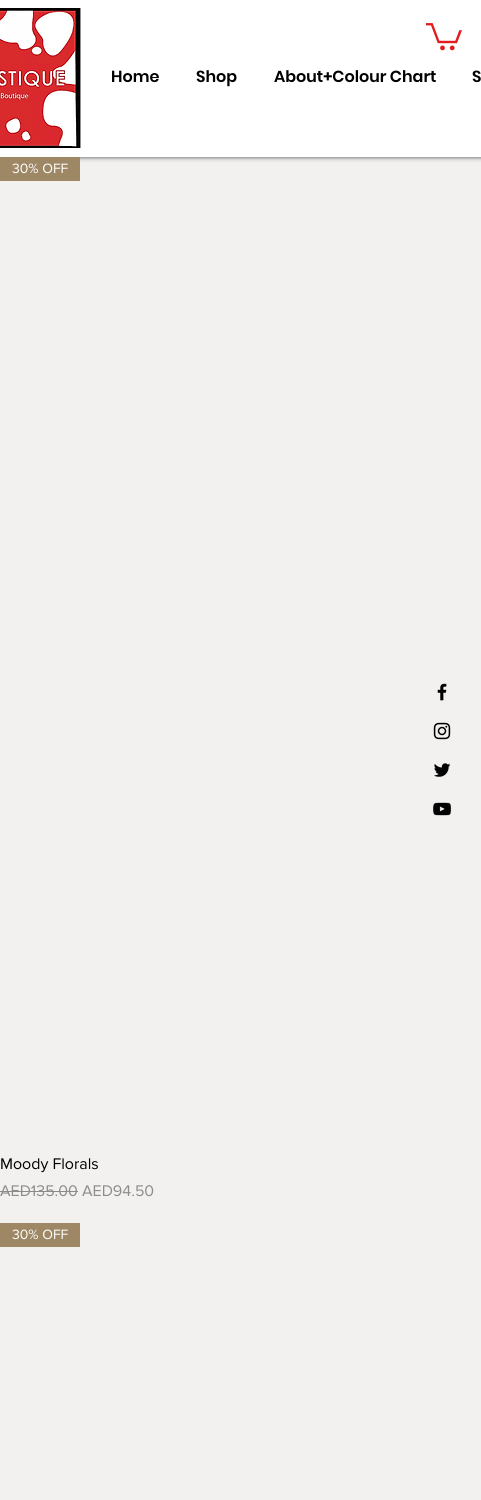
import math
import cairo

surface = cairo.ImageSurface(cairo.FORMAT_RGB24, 481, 1500)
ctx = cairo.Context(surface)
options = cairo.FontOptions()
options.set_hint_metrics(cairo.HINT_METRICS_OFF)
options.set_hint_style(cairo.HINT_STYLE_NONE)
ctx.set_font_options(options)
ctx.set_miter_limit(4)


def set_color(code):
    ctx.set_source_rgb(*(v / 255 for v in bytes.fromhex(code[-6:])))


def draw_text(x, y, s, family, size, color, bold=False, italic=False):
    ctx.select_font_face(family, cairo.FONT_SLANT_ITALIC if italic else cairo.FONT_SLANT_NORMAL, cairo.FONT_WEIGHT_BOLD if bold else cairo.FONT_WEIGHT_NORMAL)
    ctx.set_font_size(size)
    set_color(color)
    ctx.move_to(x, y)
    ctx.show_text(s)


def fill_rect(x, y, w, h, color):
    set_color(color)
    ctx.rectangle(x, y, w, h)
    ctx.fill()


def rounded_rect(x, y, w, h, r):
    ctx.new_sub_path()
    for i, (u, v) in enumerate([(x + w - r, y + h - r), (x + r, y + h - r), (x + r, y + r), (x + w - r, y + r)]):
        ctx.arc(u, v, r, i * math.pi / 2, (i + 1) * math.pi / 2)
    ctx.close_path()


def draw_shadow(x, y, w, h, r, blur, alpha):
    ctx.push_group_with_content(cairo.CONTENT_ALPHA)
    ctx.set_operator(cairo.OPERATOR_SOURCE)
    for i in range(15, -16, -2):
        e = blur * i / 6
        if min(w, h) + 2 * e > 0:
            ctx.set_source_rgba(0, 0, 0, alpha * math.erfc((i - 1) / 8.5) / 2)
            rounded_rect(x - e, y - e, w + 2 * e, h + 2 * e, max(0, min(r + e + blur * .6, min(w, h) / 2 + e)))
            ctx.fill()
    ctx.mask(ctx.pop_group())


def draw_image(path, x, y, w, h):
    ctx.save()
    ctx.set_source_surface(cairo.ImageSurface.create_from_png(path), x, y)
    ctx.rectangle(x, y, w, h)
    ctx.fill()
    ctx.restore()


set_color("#f2f1f0")
ctx.paint()
set_color("#000000")
draw_shadow(0, 0, 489, 157, 0, 2.5, 0.7)
fill_rect(0, 0, 481, 157, "#ffffff")
draw_image("assets/img1.png", 426, 23, 36, 28)
draw_image("assets/img2.png", 0, 8, 81, 140)
draw_text(111, 82, "Home", "Poppins SemiBold", 16, "#000000")
draw_text(196, 82, "Shop", "Poppins SemiBold", 16, "#000000")
draw_text(274, 82, "About+Colour Chart", "Poppins SemiBold", 16, "#000000")
draw_text(472, 82, "S", "Poppins SemiBold", 16, "#000000")
fill_rect(0, 157, 80, 24, "#9e8765")
draw_text(12, 173, "30% OFF", "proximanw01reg", 14, "#ffffff")
draw_text(0, 1169, "Moody Florals", "proximanw01reg", 16, "#000000")
draw_text(0, 1196, "AED135.00 AED94.50", "proximanw01reg", 16, "#8e8c8b")
fill_rect(0, 1191, 78, 1, "#8e8c8b")
fill_rect(0, 1223, 80, 24, "#9e8765")
draw_text(12, 1239, "30% OFF", "proximanw01reg", 14, "#ffffff")
draw_image("assets/img3.png", 437, 683, 10, 18)
draw_image("assets/img4.png", 433, 722, 18, 18)
draw_image("assets/img5.png", 434, 763, 17, 14)
draw_image("assets/img6.png", 433, 802, 19, 14)
surface.write_to_png("output.png")
